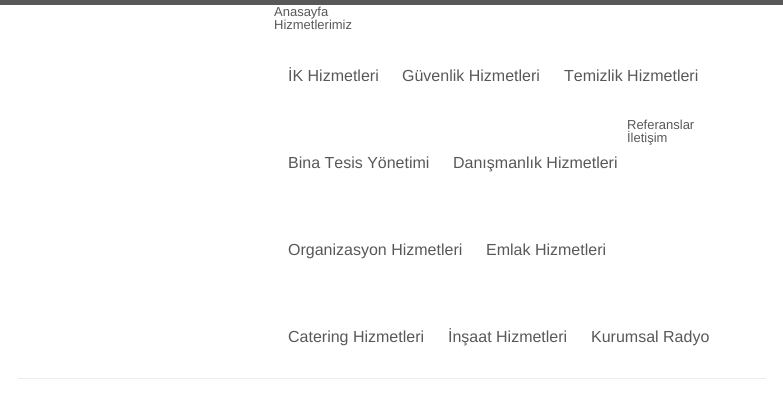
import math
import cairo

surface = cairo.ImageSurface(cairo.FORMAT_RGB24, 783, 419)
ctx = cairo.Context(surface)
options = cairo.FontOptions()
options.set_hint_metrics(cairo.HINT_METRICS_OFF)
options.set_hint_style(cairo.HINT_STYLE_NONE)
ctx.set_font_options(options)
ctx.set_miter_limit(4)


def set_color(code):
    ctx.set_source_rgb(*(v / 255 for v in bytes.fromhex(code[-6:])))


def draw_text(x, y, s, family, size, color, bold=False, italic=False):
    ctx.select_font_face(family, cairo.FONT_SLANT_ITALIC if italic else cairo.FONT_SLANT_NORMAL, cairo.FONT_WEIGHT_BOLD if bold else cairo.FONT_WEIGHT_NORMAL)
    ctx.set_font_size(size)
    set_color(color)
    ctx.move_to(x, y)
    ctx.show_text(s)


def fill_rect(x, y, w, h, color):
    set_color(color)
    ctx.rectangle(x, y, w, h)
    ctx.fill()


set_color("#ffffff")
ctx.paint()
fill_rect(0, 0, 783, 5, "#585858")
draw_text(274, 16, "Anasayfa", "Liberation Sans", 13, "#585858")
draw_text(274, 29, "Hizmetlerimiz", "Liberation Sans", 13, "#585858")
draw_text(288, 81, "İK Hizmetleri", "Liberation Sans", 16, "#585858")
draw_text(402, 81, "Güvenlik Hizmetleri", "Liberation Sans", 16, "#585858")
draw_text(564, 81, "Temizlik Hizmetleri", "Liberation Sans", 16, "#585858")
draw_text(288, 168, "Bina Tesis Yönetimi", "Liberation Sans", 16, "#585858")
draw_text(453, 168, "Danışmanlık Hizmetleri", "Liberation Sans", 16, "#585858")
draw_text(288, 255, "Organizasyon Hizmetleri", "Liberation Sans", 16, "#585858")
draw_text(486, 255, "Emlak Hizmetleri", "Liberation Sans", 16, "#585858")
draw_text(288, 342, "Catering Hizmetleri", "Liberation Sans", 16, "#585858")
draw_text(448, 342, "İnşaat Hizmetleri", "Liberation Sans", 16, "#585858")
draw_text(591, 342, "Kurumsal Radyo", "Liberation Sans", 16, "#585858")
draw_text(627, 129, "Referanslar", "Liberation Sans", 13, "#585858")
draw_text(627, 142, "İletişim", "Liberation Sans", 13, "#585858")
fill_rect(18, 378, 748, 1, "#ececec")
surface.write_to_png("output.png")
